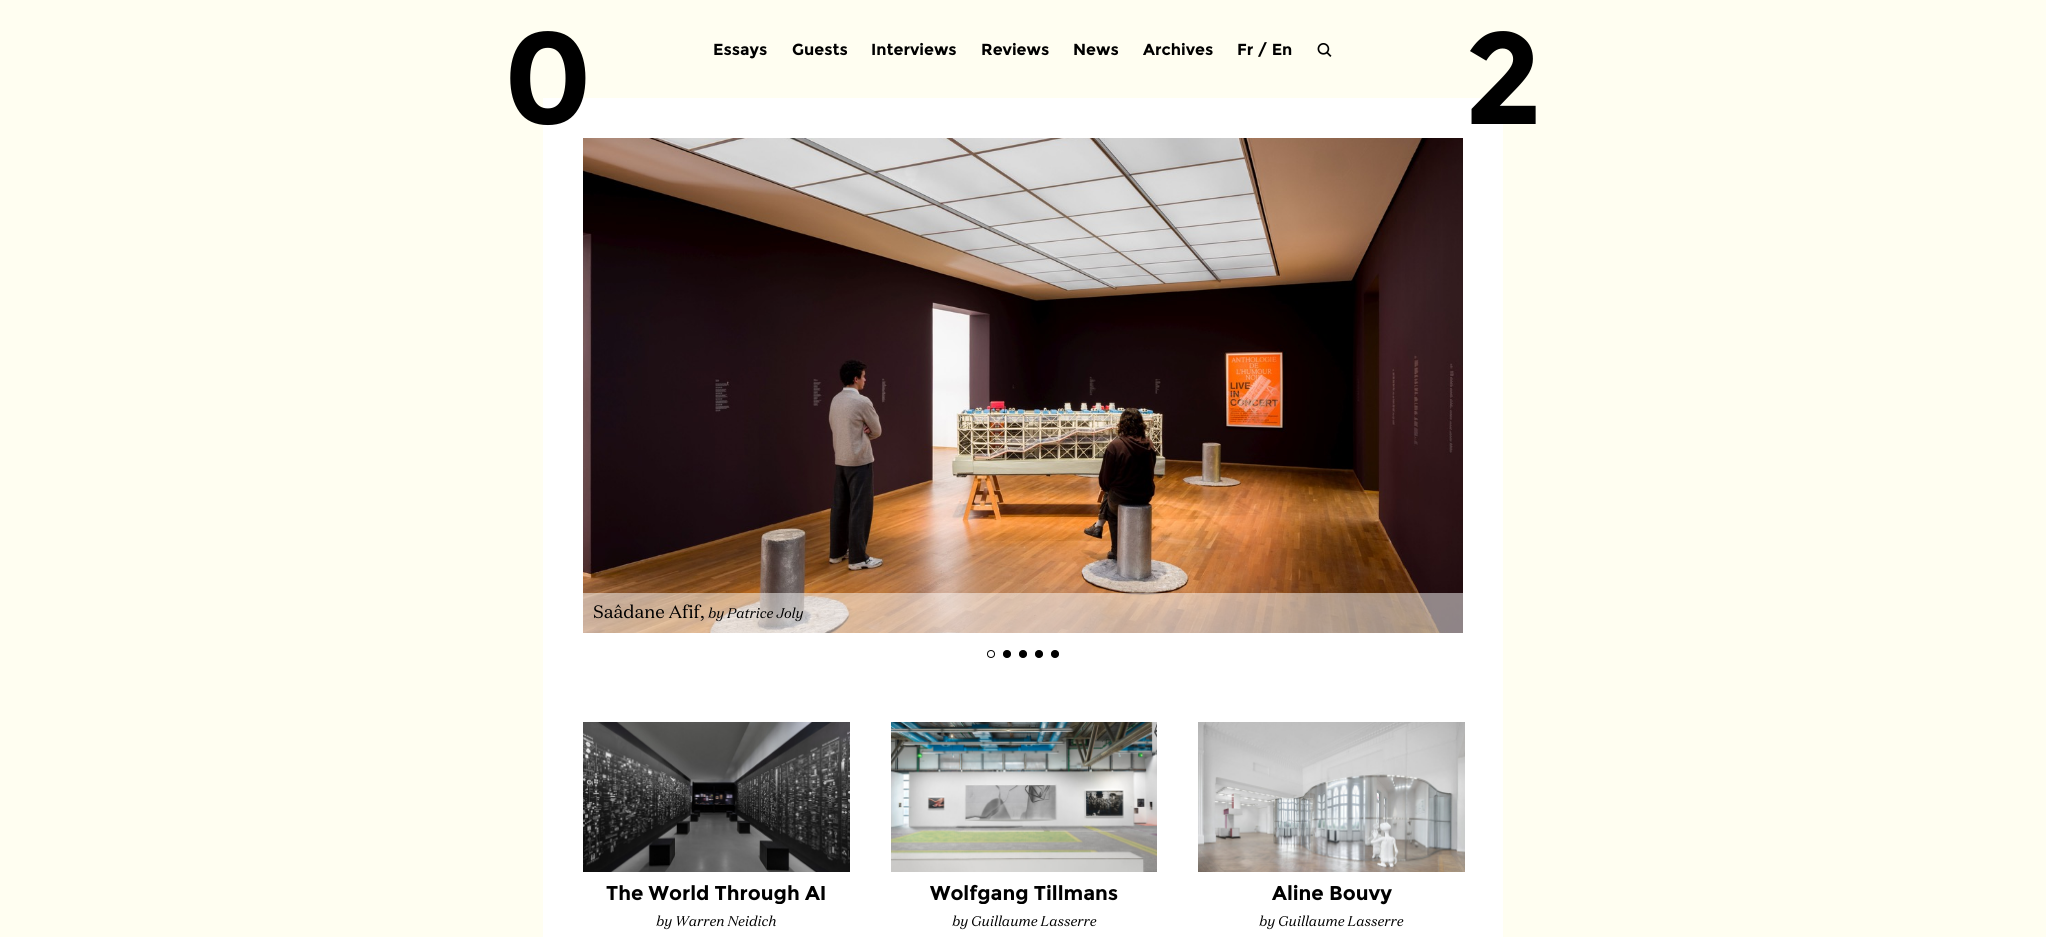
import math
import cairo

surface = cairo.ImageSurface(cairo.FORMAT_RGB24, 2046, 937)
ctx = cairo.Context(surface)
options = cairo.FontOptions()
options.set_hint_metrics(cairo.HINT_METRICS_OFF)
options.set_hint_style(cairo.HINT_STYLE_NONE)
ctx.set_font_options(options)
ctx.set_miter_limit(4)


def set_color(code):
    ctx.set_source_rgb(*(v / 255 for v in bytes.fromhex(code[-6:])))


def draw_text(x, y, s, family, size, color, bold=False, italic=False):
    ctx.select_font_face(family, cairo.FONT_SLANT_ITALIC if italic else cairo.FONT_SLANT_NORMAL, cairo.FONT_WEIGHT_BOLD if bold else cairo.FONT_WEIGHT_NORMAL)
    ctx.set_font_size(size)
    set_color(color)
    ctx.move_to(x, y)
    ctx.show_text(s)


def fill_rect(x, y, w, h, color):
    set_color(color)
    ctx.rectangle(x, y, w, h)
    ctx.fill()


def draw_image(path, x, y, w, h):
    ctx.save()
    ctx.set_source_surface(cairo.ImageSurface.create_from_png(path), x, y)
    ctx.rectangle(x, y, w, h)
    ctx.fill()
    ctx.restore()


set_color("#fffef1")
ctx.paint()
fill_rect(543, 98, 960, 839, "#ffffff")
draw_text(503, 124, "0", "Montserrat", 130, "#000000", bold=True)
draw_text(713, 55, "Essays", "Montserrat", 16, "#000000", bold=True)
draw_text(792, 55, "Guests", "Montserrat", 16, "#000000", bold=True)
draw_text(871, 55, "Interviews", "Montserrat", 16, "#000000", bold=True)
draw_text(981, 55, "Reviews", "Montserrat", 16, "#000000", bold=True)
draw_text(1073, 55, "News", "Montserrat", 16, "#000000", bold=True)
draw_text(1143, 55, "Archives", "Montserrat", 16, "#000000", bold=True)
draw_text(1237, 55, "Fr / En", "Montserrat", 16, "#000000", bold=True)
draw_image("assets/img1.png", 1317, 43, 15, 14)
draw_text(1464, 124, "2", "Montserrat", 130, "#000000", bold=True)
draw_image("assets/img2.png", 583, 138, 880, 495)
ctx.set_source_rgba(1, 1, 1, 0.5)
ctx.rectangle(583, 593, 880, 40)
ctx.fill()
draw_text(593, 618, "Saâdane Afif,", "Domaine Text", 18, "#000000")
draw_text(708, 618, "by Patrice Joly", "Domaine Text", 14, "#000000", italic=True)
ctx.new_path()
ctx.arc(991, 654, 3.5, 0, 2 * math.pi)
ctx.set_line_width(1)
ctx.stroke()
ctx.arc(1007, 654, 3.5, 0, 2 * math.pi)
ctx.fill_preserve()
ctx.stroke()
ctx.arc(1023, 654, 3.5, 0, 2 * math.pi)
ctx.fill_preserve()
ctx.stroke()
ctx.arc(1039, 654, 3.5, 0, 2 * math.pi)
ctx.fill_preserve()
ctx.stroke()
ctx.arc(1055, 654, 3.5, 0, 2 * math.pi)
ctx.fill_preserve()
ctx.stroke()
draw_image("assets/img3.png", 583, 722, 267, 150)
ctx.save()
ctx.rectangle(583, 882, 267, 22)
ctx.clip()
draw_text(606, 900, "The World Through AI", "Montserrat", 20, "#000000", bold=True)
ctx.restore()
draw_text(656, 926, "by Warren Neidich", "Domaine Text", 14, "#000000", italic=True)
draw_image("assets/img4.png", 891, 722, 266, 150)
ctx.save()
ctx.rectangle(891, 882, 266, 22)
ctx.clip()
draw_text(930, 900, "Wolfgang Tillmans", "Montserrat", 20, "#000000", bold=True)
ctx.restore()
draw_text(952, 926, "by Guillaume Lasserre", "Domaine Text", 14, "#000000", italic=True)
draw_image("assets/img5.png", 1198, 722, 267, 150)
draw_text(1272, 900, "Aline Bouvy", "Montserrat", 20, "#000000", bold=True)
draw_text(1259, 926, "by Guillaume Lasserre", "Domaine Text", 14, "#000000", italic=True)
surface.write_to_png("output.png")
